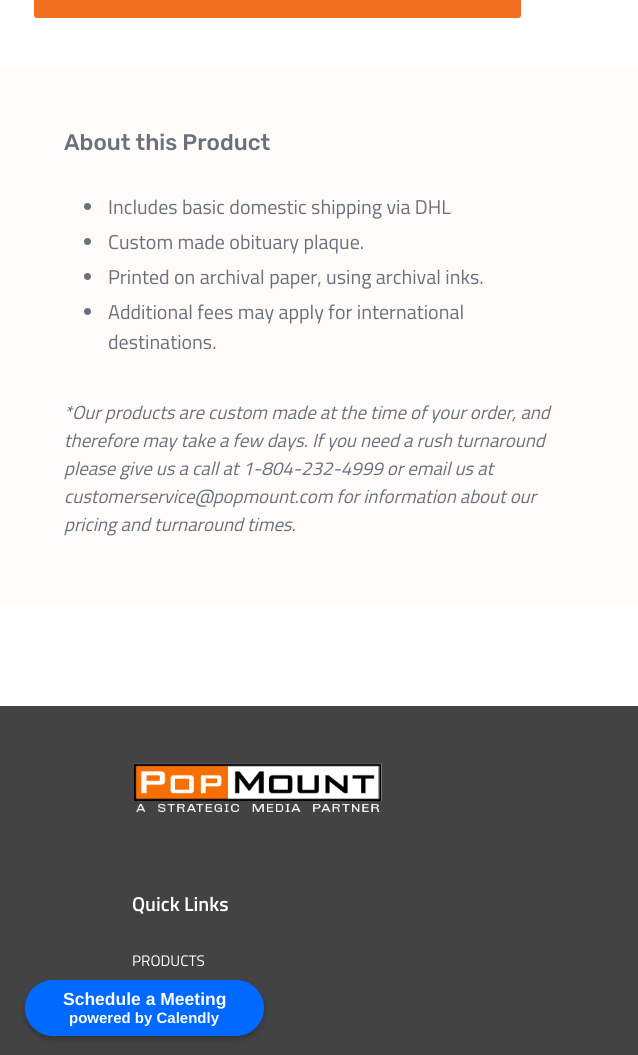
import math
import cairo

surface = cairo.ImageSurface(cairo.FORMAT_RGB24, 638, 1055)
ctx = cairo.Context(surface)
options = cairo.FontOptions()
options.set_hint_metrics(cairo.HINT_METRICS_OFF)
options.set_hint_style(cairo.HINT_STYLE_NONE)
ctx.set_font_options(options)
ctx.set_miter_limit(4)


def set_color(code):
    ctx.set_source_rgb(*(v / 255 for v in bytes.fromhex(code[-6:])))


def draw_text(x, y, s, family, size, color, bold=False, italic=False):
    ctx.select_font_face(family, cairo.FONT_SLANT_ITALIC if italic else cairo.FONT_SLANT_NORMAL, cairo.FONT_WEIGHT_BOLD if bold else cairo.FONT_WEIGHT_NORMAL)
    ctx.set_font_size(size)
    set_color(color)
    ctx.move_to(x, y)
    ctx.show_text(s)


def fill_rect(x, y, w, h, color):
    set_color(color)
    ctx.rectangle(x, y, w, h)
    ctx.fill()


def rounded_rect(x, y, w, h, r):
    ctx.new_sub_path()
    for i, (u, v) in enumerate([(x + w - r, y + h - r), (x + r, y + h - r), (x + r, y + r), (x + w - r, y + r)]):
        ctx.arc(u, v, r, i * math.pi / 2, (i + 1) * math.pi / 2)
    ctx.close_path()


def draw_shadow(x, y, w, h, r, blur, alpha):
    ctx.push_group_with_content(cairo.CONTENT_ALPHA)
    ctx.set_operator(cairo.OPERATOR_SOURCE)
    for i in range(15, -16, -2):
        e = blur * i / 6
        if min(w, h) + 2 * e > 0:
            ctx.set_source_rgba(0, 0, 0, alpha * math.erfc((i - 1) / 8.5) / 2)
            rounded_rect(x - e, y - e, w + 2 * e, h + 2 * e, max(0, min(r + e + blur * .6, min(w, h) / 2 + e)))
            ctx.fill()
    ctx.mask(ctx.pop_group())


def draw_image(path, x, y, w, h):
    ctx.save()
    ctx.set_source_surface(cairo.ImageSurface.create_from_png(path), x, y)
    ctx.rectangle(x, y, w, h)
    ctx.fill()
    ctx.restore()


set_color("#ffffff")
ctx.paint()
set_color("#f37022")
rounded_rect(34, -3, 487, 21, 2.5)
ctx.fill()
fill_rect(0, 68, 638, 535, "#fffbf9")
draw_text(64, 150, "About this Product", "Rubik Light", 22.5, "#69727b")
ctx.new_path()
ctx.arc(87.5, 206.5, 3.5, 0, 2 * math.pi)
ctx.fill()
draw_text(108, 214, "Includes basic domestic shipping via DHL", "Titillium Web", 20, "#69727b")
ctx.new_path()
ctx.arc(87.5, 241.5, 3.5, 0, 2 * math.pi)
ctx.fill()
draw_text(108, 249, "Custom made obituary plaque.", "Titillium Web", 20, "#69727b")
ctx.new_path()
ctx.arc(87.5, 276.5, 3.5, 0, 2 * math.pi)
ctx.fill()
draw_text(108, 284, "Printed on archival paper, using archival inks.", "Titillium Web", 20, "#69727b")
ctx.new_path()
ctx.arc(87.5, 311.5, 3.5, 0, 2 * math.pi)
ctx.fill()
draw_text(108, 319, "Additional fees may apply for international", "Titillium Web", 20, "#69727b")
draw_text(108, 349, "destinations.", "Titillium Web", 20, "#69727b")
draw_text(64, 419, "*Our products are custom made at the time of your order, and", "Titillium Web", 18.75, "#69727b", italic=True)
draw_text(64, 447, "therefore may take a few days. If you need a rush turnaround", "Titillium Web", 18.75, "#69727b", italic=True)
draw_text(64, 475, "please give us a call at 1-804-232-4999 or email us at", "Titillium Web", 18.75, "#69727b", italic=True)
draw_text(64, 503, "customerservice@popmount.com for information about our", "Titillium Web", 18.75, "#69727b", italic=True)
draw_text(64, 531, "pricing and turnaround times.", "Titillium Web", 18.75, "#69727b", italic=True)
fill_rect(0, 706, 638, 349, "#434343")
draw_image("assets/img1.png", 257, 725, 23, 9)
draw_image("assets/img2.png", 134, 763, 248, 49)
draw_text(132, 911, "Quick Links", "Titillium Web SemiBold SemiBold", 20, "#ffffff")
draw_text(132, 966, "PRODUCTS", "Titillium Web", 15.25, "#ffffff")
set_color("#000000")
draw_shadow(25, 983, 239, 56, 28, 3, 0.25)
set_color("#0069ff")
rounded_rect(25, 980, 239, 56, 28)
ctx.fill()
draw_text(63, 1005, "Schedule a Meeting", "Liberation Sans", 17.5, "#ffffff", bold=True)
draw_text(69, 1023, "powered by Calendly", "Liberation Sans", 15, "#ffffff", bold=True)
surface.write_to_png("output.png")
